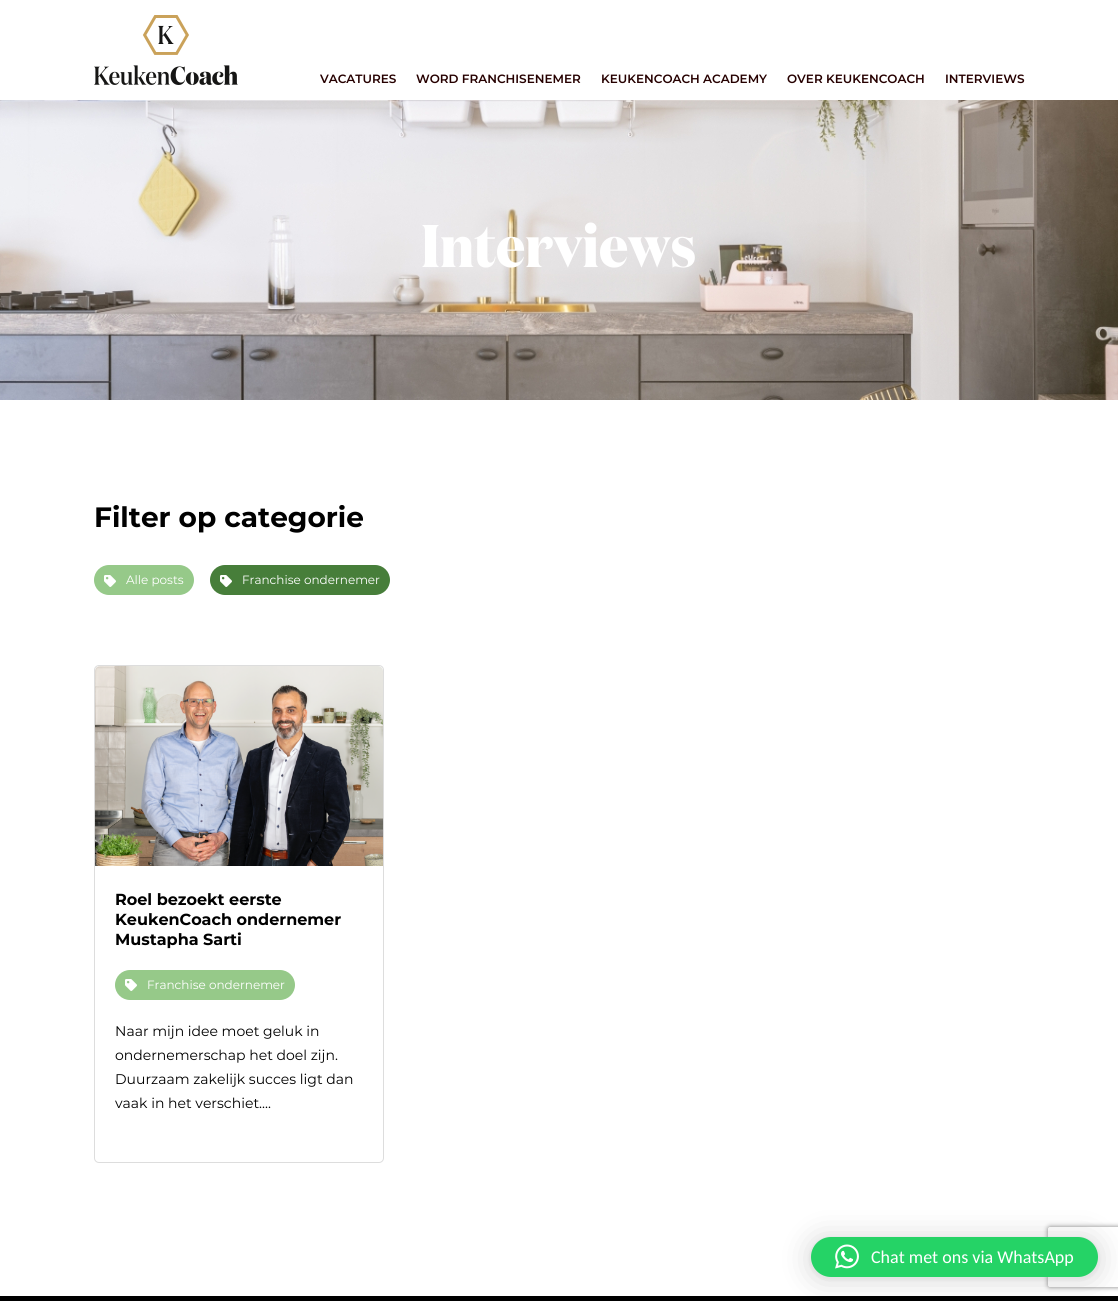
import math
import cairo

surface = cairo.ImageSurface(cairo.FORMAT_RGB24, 1118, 1301)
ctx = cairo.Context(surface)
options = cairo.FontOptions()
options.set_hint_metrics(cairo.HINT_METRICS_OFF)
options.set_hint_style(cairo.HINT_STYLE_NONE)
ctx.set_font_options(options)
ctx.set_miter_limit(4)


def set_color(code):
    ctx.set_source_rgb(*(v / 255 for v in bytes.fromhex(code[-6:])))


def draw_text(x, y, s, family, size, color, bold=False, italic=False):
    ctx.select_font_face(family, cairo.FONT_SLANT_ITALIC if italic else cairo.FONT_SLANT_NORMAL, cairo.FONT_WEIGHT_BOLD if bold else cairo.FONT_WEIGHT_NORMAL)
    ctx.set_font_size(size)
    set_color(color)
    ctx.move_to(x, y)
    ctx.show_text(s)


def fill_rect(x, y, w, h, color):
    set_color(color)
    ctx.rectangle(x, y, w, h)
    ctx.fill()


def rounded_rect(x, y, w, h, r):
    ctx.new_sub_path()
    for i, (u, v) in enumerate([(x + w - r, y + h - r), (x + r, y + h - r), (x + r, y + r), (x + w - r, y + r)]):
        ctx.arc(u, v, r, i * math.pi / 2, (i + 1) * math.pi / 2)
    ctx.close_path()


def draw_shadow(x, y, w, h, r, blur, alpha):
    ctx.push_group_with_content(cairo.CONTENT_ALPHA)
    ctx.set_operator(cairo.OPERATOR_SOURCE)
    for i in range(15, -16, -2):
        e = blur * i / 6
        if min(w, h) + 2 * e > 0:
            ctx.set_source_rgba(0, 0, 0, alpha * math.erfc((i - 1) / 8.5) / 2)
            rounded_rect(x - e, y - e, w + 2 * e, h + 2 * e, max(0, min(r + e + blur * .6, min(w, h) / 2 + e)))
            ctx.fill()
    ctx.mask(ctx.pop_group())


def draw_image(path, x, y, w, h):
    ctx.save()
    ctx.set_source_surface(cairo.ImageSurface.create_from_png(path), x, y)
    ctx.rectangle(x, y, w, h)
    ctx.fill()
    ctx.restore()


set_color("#ffffff")
ctx.paint()
draw_image("assets/img1.png", 94, 15, 144, 70)
draw_text(320, 83, "VACATURES", "Montserrat SemiBold", 12, "#260000")
draw_text(416, 83, "WORD FRANCHISENEMER", "Montserrat SemiBold", 12, "#260000")
draw_text(601, 83, "KEUKENCOACH ACADEMY", "Montserrat SemiBold", 12, "#260000")
draw_text(787, 83, "OVER KEUKENCOACH", "Montserrat SemiBold", 12, "#260000")
draw_text(945, 83, "INTERVIEWS", "Montserrat SemiBold", 12, "#260000")
draw_image("assets/img2.png", 0, 100, 1118, 300)
draw_text(421, 267, "Interviews", "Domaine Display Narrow", 60, "#ffffff", bold=True)
draw_text(94, 527, "Filter op categorie", "Montserrat", 28, "#000000", bold=True)
set_color("#96c989")
rounded_rect(94, 565, 100, 30, 15)
ctx.fill()
draw_image("assets/img3.png", 104, 575, 12, 12)
draw_text(126, 584, "Alle posts", "Montserrat", 12, "#ffffff")
set_color("#477e3a")
rounded_rect(210, 565, 180, 30, 15)
ctx.fill()
draw_image("assets/img4.png", 220, 575, 12, 12)
draw_text(242, 584, "Franchise ondernemer", "Montserrat", 12, "#ffffff")
rounded_rect(94.5, 665.5, 289, 497, 4.5)
set_color("#dddddd")
ctx.set_line_width(1)
ctx.stroke()
draw_image("assets/img5.png", 95, 666, 288, 200)
draw_text(115, 905, "Roel bezoekt eerste", "Montserrat", 16, "#000000", bold=True)
draw_text(115, 925, "KeukenCoach ondernemer", "Montserrat", 16, "#000000", bold=True)
draw_text(115, 945, "Mustapha Sarti", "Montserrat", 16, "#000000", bold=True)
set_color("#96c989")
rounded_rect(115, 970, 180, 30, 15)
ctx.fill()
draw_image("assets/img3.png", 125, 979, 12, 12)
draw_text(147, 989, "Franchise ondernemer", "Montserrat", 12, "#ffffff")
draw_text(115, 1036, "Naar mijn idee moet geluk in", "Montserrat", 14, "#000000")
draw_text(115, 1060, "ondernemerschap het doel zijn.", "Montserrat", 14, "#000000")
draw_text(115, 1084, "Duurzaam zakelijk succes ligt dan", "Montserrat", 14, "#000000")
draw_text(115, 1108, "vaak in het verschiet....", "Montserrat", 14, "#000000")
fill_rect(0, 1296, 1118, 5, "#000000")
set_color("#000000")
draw_shadow(811, 1239, 287, 40, 20, 16, 0.16)
draw_shadow(811, 1238, 287, 40, 20, 3, 0.06)
ctx.save()
ctx.set_fill_rule(cairo.FILL_RULE_EVEN_ODD)
ctx.new_path()
ctx.move_to(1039, 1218)
ctx.line_to(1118, 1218)
ctx.line_to(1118, 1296)
ctx.line_to(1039, 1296)
ctx.close_path()
ctx.move_to(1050, 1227)
ctx.line_to(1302, 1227)
ctx.curve_to(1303, 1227, 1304, 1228, 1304, 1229)
ctx.line_to(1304, 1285)
ctx.curve_to(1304, 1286, 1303, 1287, 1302, 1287)
ctx.line_to(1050, 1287)
ctx.curve_to(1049, 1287, 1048, 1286, 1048, 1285)
ctx.line_to(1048, 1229)
ctx.curve_to(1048, 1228, 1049, 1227, 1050, 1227)
ctx.close_path()
ctx.clip()
set_color("#808080")
draw_shadow(1048, 1227, 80, 60, 2, 2.5, 1)
ctx.restore()
set_color("#25d366")
rounded_rect(811, 1237, 287, 40, 20)
ctx.fill()
draw_image("assets/img6.png", 835, 1244, 24, 25)
draw_text(871, 1263, "Chat met ons via WhatsApp", "Carlito", 18, "#ffffff")
surface.write_to_png("output.png")
